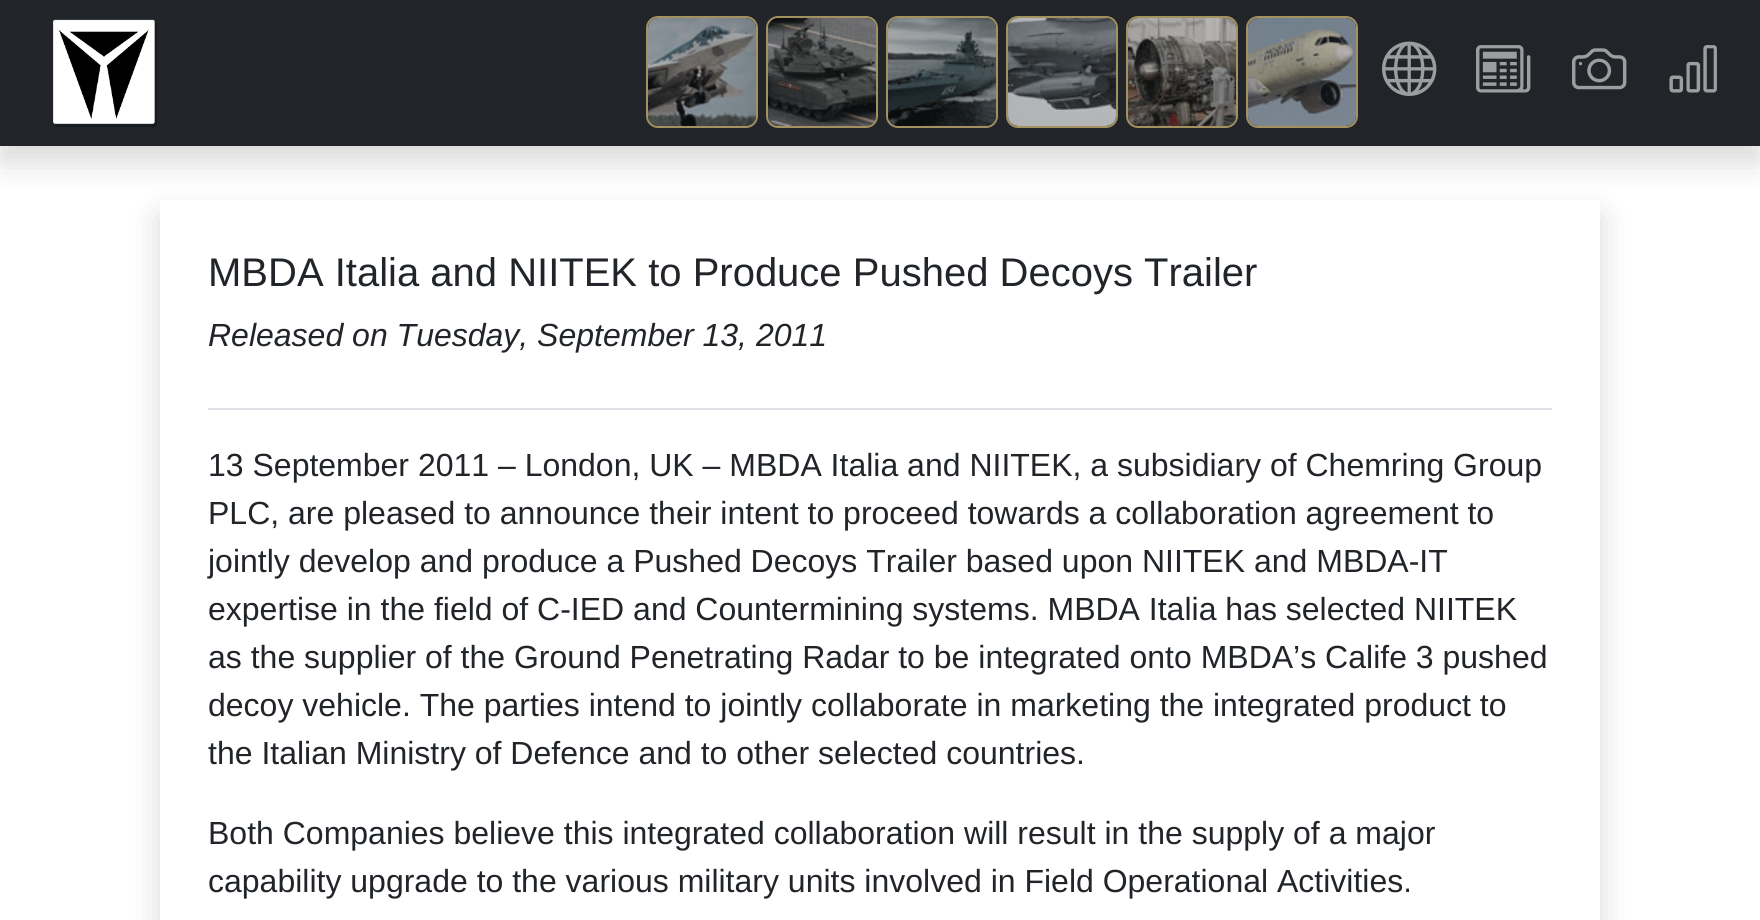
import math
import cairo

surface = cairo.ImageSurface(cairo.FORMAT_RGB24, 1760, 920)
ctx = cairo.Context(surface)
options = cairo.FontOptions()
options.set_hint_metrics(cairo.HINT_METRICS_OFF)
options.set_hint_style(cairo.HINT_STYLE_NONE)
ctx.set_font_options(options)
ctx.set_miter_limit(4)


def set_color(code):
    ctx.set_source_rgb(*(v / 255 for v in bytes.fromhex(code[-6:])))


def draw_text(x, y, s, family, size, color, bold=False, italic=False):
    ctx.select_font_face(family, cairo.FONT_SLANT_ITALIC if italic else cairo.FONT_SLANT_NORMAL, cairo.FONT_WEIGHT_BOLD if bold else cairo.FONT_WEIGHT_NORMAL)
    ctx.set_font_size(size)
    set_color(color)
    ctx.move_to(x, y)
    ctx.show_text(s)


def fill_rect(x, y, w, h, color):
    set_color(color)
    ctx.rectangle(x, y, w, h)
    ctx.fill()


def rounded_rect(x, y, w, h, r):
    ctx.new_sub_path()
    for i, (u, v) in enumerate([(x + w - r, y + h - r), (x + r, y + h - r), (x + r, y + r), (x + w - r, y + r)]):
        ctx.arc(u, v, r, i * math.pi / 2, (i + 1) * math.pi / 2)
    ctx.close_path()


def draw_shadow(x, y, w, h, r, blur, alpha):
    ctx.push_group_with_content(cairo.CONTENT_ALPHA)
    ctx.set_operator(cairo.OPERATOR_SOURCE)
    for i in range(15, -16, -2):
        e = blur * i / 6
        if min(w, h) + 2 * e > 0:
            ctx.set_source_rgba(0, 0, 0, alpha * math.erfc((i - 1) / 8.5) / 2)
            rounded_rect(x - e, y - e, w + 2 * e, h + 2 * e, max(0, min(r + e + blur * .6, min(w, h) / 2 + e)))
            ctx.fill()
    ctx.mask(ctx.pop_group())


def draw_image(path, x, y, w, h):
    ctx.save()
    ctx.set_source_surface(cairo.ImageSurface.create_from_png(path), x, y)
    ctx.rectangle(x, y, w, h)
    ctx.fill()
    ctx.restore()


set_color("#ffffff")
ctx.paint()
set_color("#000000")
draw_shadow(0, 16, 1760, 146, 0, 16, 0.15)
fill_rect(0, 0, 1760, 146, "#212529")
draw_image("assets/img1.png", 53, 19, 104, 108)
rounded_rect(647, 17, 110, 110, 11)
set_color("#a3925f")
ctx.stroke()
draw_image("assets/img2.png", 648, 18, 108, 108)
rounded_rect(767, 17, 110, 110, 11)
ctx.stroke()
draw_image("assets/img3.png", 768, 18, 108, 108)
rounded_rect(887, 17, 110, 110, 11)
ctx.stroke()
draw_image("assets/img4.png", 888, 18, 108, 108)
rounded_rect(1007, 17, 110, 110, 11)
ctx.stroke()
draw_image("assets/img5.png", 1008, 18, 108, 108)
rounded_rect(1127, 17, 110, 110, 11)
ctx.stroke()
draw_image("assets/img6.png", 1128, 18, 108, 108)
rounded_rect(1247, 17, 110, 110, 11)
ctx.stroke()
draw_image("assets/img7.png", 1248, 18, 108, 108)
draw_image("assets/img8.png", 1382, 41, 55, 55)
draw_image("assets/img9.png", 1476, 45, 55, 48)
draw_image("assets/img10.png", 1572, 48, 55, 42)
draw_image("assets/img11.png", 1669, 45, 48, 48)
ctx.save()
ctx.set_fill_rule(cairo.FILL_RULE_EVEN_ODD)
ctx.new_path()
ctx.move_to(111, 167)
ctx.line_to(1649, 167)
ctx.line_to(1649, 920)
ctx.line_to(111, 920)
ctx.close_path()
ctx.move_to(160, 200)
ctx.line_to(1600, 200)
ctx.line_to(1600, 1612)
ctx.line_to(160, 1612)
ctx.close_path()
ctx.clip()
set_color("#000000")
draw_shadow(160, 216, 1440, 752, 0, 16, 0.15)
ctx.restore()
draw_text(208, 286, "MBDA Italia and NIITEK to Produce Pushed Decoys Trailer", "Liberation Sans", 40, "#212529")
draw_text(208, 346, "Released on Tuesday, September 13, 2011", "Liberation Sans", 32, "#212529", italic=True)
fill_rect(208, 408, 1344, 2, "#dee2e6")
draw_text(208, 476, "13 September 2011 – London, UK – MBDA Italia and NIITEK, a subsidiary of Chemring Group", "Liberation Sans", 32, "#212529")
draw_text(208, 524, "PLC, are pleased to announce their intent to proceed towards a collaboration agreement to", "Liberation Sans", 32, "#212529")
draw_text(208, 572, "jointly develop and produce a Pushed Decoys Trailer based upon NIITEK and MBDA-IT", "Liberation Sans", 32, "#212529")
draw_text(208, 620, "expertise in the field of C-IED and Countermining systems. MBDA Italia has selected NIITEK", "Liberation Sans", 32, "#212529")
draw_text(208, 668, "as the supplier of the Ground Penetrating Radar to be integrated onto MBDA’s Calife 3 pushed", "Liberation Sans", 32, "#212529")
draw_text(208, 716, "decoy vehicle. The parties intend to jointly collaborate in marketing the integrated product to", "Liberation Sans", 32, "#212529")
draw_text(208, 764, "the Italian Ministry of Defence and to other selected countries.", "Liberation Sans", 32, "#212529")
draw_text(208, 844, "Both Companies believe this integrated collaboration will result in the supply of a major", "Liberation Sans", 32, "#212529")
draw_text(208, 892, "capability upgrade to the various military units involved in Field Operational Activities.", "Liberation Sans", 32, "#212529")
surface.write_to_png("output.png")
